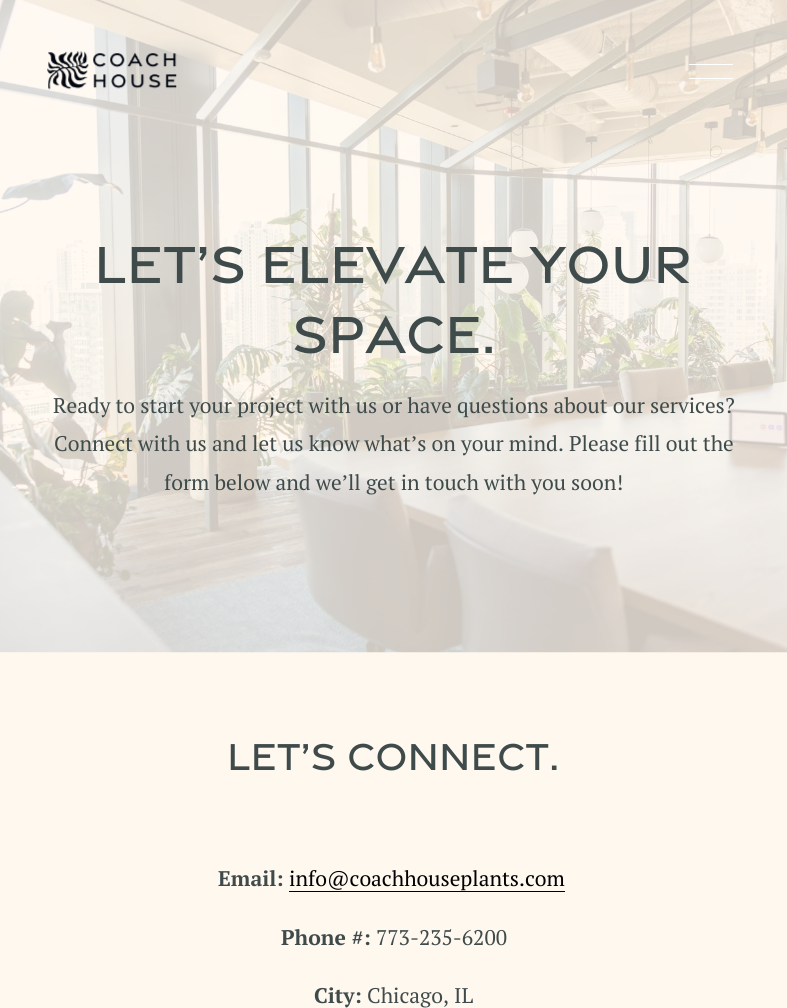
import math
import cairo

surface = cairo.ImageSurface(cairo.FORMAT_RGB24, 787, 1008)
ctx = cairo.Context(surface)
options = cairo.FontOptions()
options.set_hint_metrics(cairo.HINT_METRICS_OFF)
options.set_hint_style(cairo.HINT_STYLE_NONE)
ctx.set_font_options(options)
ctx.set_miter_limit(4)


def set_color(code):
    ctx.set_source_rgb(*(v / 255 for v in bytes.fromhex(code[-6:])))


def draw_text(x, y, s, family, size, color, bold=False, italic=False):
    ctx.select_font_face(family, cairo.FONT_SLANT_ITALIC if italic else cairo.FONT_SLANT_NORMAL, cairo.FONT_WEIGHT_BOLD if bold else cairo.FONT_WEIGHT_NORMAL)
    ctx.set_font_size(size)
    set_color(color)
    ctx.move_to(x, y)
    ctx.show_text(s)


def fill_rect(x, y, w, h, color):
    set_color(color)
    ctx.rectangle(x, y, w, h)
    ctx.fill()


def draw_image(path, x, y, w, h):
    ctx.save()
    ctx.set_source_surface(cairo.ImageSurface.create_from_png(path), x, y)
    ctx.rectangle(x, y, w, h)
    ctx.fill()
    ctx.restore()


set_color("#fff8ef")
ctx.paint()
draw_image("assets/img2.png", 0, 0, 787, 653)
draw_image("assets/img1.png", 47, 51, 130, 39)
fill_rect(689, 64, 44, 1, "#ffffff")
fill_rect(689, 78, 44, 1, "#ffffff")
draw_text(94, 283, "Let’s Elevate Your", "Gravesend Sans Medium", 56.25, "#3f4b4b")
draw_text(292, 353, "Space.", "Gravesend Sans Medium", 56.25, "#3f4b4b")
draw_text(53, 413, "Ready to start your project with us or have questions about our services?", "PT Serif", 21.2, "#3f4b4b")
draw_text(54, 451, "Connect with us and let us know what’s on your mind. Please fill out the", "PT Serif", 21.2, "#3f4b4b")
draw_text(164, 490, "form below and we’ll get in touch with you soon!", "PT Serif", 21.2, "#3f4b4b")
draw_text(227, 770, "Let’s Connect.", "Gravesend Sans Medium", 40.5, "#3f4b4b")
draw_text(218, 886, "Email:", "PT Serif", 21.2, "#3f4b4b", bold=True)
draw_text(289, 886, "info@coachhouseplants.com", "PT Serif", 21.2, "#000000")
fill_rect(289, 891, 276, 1, "#000000")
draw_text(281, 945, "Phone #:", "PT Serif", 21.2, "#3f4b4b", bold=True)
draw_text(376, 945, "773-235-6200", "PT Serif", 21.2, "#3f4b4b")
draw_text(314, 1003, "City:", "PT Serif", 21.2, "#3f4b4b", bold=True)
draw_text(367, 1003, "Chicago, IL", "PT Serif", 21.2, "#3f4b4b")
surface.write_to_png("output.png")
